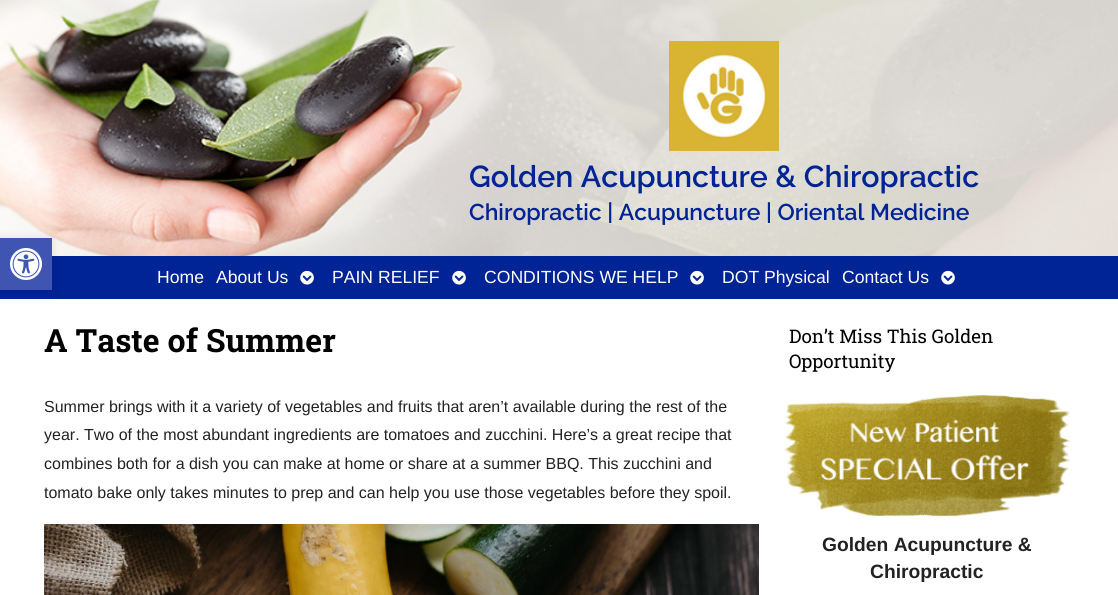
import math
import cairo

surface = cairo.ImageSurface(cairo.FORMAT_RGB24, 1118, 595)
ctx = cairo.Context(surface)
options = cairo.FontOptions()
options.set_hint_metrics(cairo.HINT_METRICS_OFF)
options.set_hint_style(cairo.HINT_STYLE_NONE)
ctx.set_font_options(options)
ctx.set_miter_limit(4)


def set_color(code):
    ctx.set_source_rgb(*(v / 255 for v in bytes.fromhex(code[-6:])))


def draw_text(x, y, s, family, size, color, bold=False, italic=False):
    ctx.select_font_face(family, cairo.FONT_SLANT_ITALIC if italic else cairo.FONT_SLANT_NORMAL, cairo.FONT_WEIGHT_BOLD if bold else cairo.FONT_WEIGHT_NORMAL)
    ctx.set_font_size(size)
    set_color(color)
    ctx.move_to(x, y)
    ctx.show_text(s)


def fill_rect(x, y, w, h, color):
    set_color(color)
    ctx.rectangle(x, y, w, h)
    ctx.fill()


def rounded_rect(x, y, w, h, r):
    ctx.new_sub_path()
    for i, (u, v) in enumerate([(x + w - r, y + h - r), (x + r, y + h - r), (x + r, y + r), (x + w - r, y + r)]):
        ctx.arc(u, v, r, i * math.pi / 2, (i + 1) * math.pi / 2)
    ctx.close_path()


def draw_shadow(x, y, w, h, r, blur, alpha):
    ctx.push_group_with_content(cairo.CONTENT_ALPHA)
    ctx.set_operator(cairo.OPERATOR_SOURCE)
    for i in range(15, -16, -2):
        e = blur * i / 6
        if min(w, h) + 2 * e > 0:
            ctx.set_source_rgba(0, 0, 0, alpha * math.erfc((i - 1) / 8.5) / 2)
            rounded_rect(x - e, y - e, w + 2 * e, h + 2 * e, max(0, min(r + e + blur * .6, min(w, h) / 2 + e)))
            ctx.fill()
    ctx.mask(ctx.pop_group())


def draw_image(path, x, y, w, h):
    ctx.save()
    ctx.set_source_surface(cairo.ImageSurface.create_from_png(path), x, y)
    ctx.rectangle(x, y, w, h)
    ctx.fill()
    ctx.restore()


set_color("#ffffff")
ctx.paint()
draw_image("assets/img2.png", 0, 0, 1118, 256)
fill_rect(0, 256, 1118, 43, "#002395")
set_color("#000000")
draw_shadow(0, 238, 52, 52, 0, 5, 0.1)
fill_rect(0, 238, 52, 52, "#4054b2")
draw_image("assets/img1.png", 10, 248, 32, 32)
draw_image("assets/img3.png", 669, 41, 110, 110)
draw_text(469, 187, "Golden Acupuncture & Chiropractic", "Raleway SemiBold", 30.25, "#002395")
draw_text(469, 220, "Chiropractic | Acupuncture | Oriental Medicine", "Raleway SemiBold", 22.9, "#002395")
draw_text(157, 283, "Home", "Liberation Sans", 17.6, "#ffffff")
draw_text(216, 283, "About Us", "Liberation Sans", 17.6, "#ffffff")
draw_image("assets/img4.png", 300, 270, 14, 15)
draw_text(332, 283, "PAIN RELIEF", "Liberation Sans", 17.6, "#ffffff")
draw_image("assets/img4.png", 452, 270, 14, 15)
draw_text(484, 283, "CONDITIONS WE HELP", "Liberation Sans", 17.6, "#ffffff")
draw_image("assets/img4.png", 690, 270, 14, 15)
draw_text(722, 283, "DOT Physical", "Liberation Sans", 17.6, "#ffffff")
draw_text(842, 283, "Contact Us", "Liberation Sans", 17.6, "#ffffff")
draw_image("assets/img4.png", 941, 270, 14, 15)
draw_text(44, 352, "A Taste of Summer", "Roboto Slab", 32, "#000000", bold=True)
draw_text(44, 412, "Summer brings with it a variety of vegetables and fruits that aren’t available during the rest of the", "Liberation Sans", 16, "#222222")
draw_text(44, 440, "year. Two of the most abundant ingredients are tomatoes and zucchini. Here’s a great recipe that", "Liberation Sans", 16, "#222222")
draw_text(44, 469, "combines both for a dish you can make at home or share at a summer BBQ. This zucchini and", "Liberation Sans", 16, "#222222")
draw_text(44, 498, "tomato bake only takes minutes to prep and can help you use those vegetables before they spoil.", "Liberation Sans", 16, "#222222")
draw_image("assets/img5.png", 44, 524, 715, 71)
draw_text(789, 343, "Don’t Miss This Golden", "Roboto Slab", 18.75, "#000000")
draw_text(789, 368, "Opportunity", "Roboto Slab", 18.75, "#000000")
draw_image("assets/img6.png", 784, 394, 286, 123)
draw_text(822, 551, "Golden Acupuncture &", "Liberation Sans", 19.25, "#222222", bold=True)
draw_text(870, 578, "Chiropractic", "Liberation Sans", 19.25, "#222222", bold=True)
surface.write_to_png("output.png")
